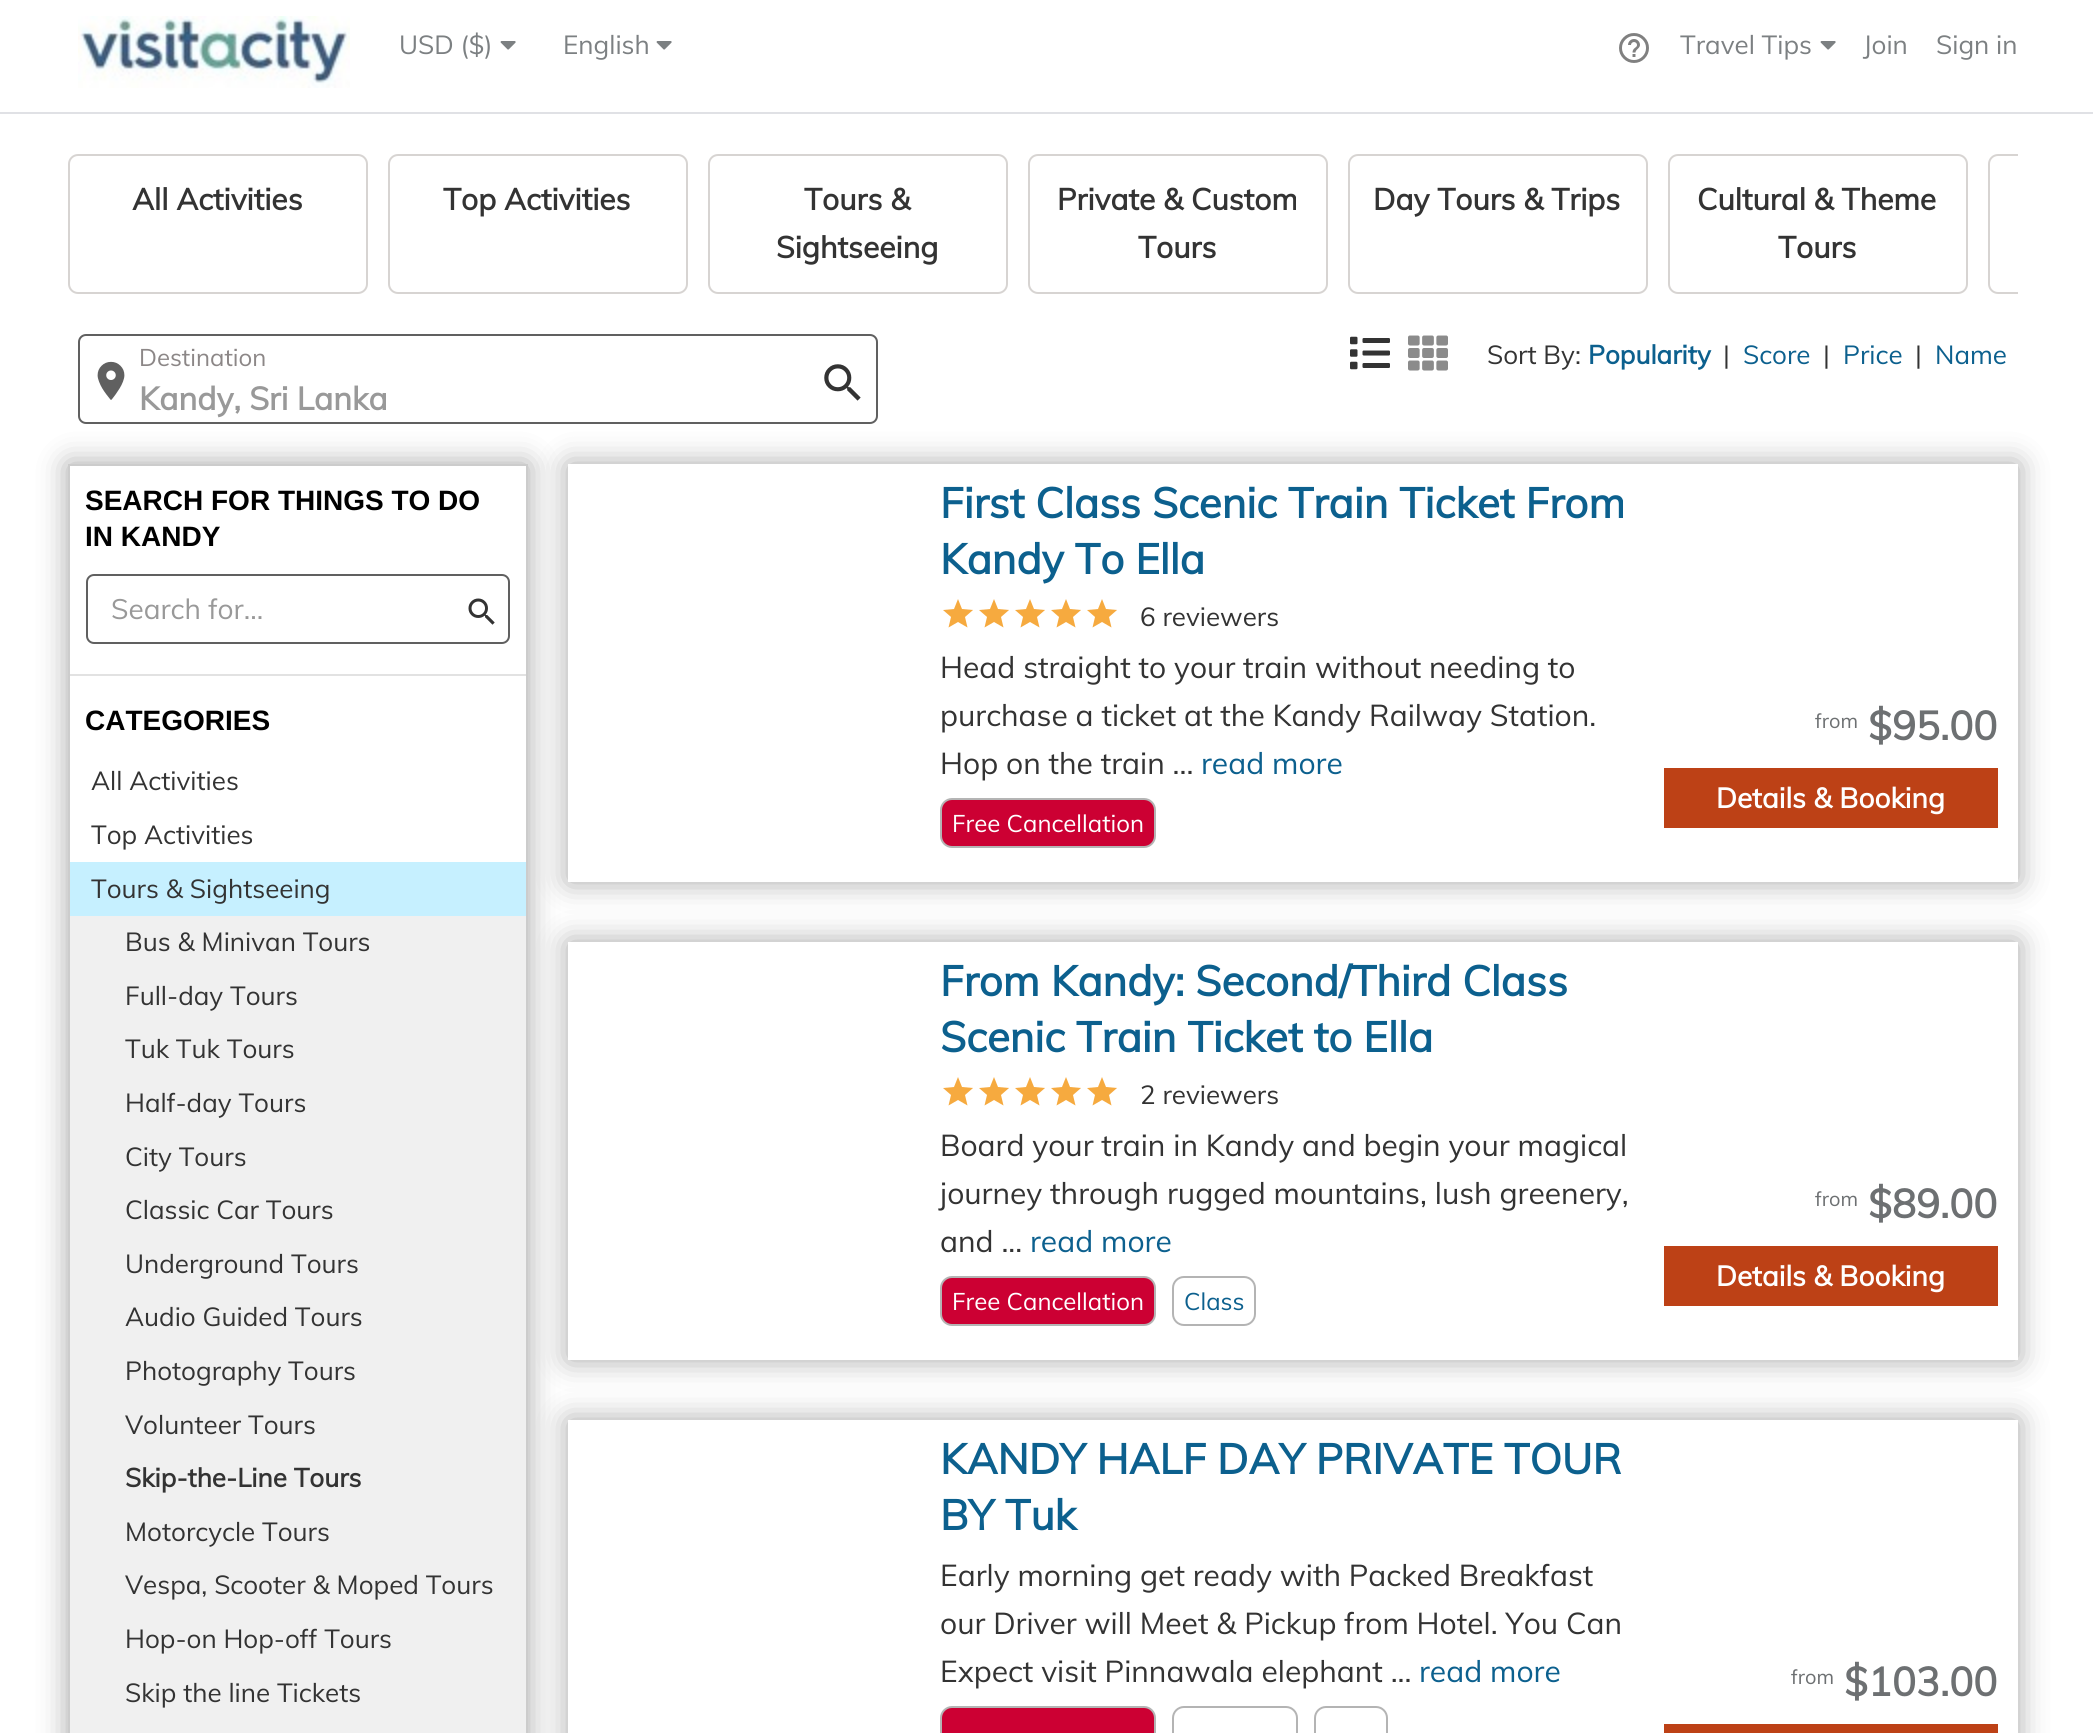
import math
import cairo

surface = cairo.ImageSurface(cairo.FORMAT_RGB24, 2093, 1733)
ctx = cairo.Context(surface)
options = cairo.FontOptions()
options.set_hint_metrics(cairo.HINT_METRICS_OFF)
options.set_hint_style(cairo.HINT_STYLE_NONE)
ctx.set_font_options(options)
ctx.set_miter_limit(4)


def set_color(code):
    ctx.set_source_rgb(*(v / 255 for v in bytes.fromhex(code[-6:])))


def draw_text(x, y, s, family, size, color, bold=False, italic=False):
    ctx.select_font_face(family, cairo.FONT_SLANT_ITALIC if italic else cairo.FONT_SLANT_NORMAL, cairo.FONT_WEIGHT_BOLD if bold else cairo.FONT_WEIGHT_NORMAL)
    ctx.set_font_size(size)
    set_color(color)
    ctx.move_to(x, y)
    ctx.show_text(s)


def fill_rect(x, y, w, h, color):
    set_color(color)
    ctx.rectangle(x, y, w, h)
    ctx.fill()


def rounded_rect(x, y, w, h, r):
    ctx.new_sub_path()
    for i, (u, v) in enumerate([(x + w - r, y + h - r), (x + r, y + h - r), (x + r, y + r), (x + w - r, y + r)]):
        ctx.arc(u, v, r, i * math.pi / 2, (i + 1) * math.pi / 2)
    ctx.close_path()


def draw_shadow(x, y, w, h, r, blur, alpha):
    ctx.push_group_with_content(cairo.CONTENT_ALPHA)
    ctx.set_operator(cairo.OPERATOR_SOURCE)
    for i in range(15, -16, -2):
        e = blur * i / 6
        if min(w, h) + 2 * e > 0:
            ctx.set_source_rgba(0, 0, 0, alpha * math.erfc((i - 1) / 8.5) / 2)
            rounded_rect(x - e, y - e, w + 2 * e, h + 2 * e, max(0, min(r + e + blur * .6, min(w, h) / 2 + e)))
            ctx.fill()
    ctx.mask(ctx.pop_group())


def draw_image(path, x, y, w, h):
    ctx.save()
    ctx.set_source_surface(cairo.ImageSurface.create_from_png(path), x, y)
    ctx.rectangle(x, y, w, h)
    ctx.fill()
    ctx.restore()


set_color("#ffffff")
ctx.paint()
draw_image("assets/img1.png", 78, 16, 272, 72)
draw_text(399, 54, "USD ($)", "Muli", 26, "#7c8082")
draw_image("assets/img2.png", 500, 41, 16, 9)
draw_text(563, 54, "English", "Muli", 26, "#7c8082")
draw_image("assets/img2.png", 656, 41, 16, 9)
draw_image("assets/img3.png", 1619, 33, 30, 30)
draw_text(1680, 54, "Travel Tips", "Muli", 26, "#7c8082")
draw_image("assets/img2.png", 1820, 41, 16, 9)
draw_text(1863, 54, "Join", "Muli", 26, "#7c8082")
draw_text(1936, 54, "Sign in", "Muli", 26, "#7c8082")
fill_rect(0, 112, 2093, 2, "#e0e1e5")
rounded_rect(69, 155, 298, 138, 9)
set_color("#d7d4d2")
ctx.stroke()
draw_text(132, 210, "All Activities", "Muli", 30, "#333333", bold=True)
rounded_rect(389, 155, 298, 138, 9)
set_color("#d7d4d2")
ctx.stroke()
draw_text(443, 210, "Top Activities", "Muli", 30, "#333333", bold=True)
rounded_rect(709, 155, 298, 138, 9)
set_color("#d7d4d2")
ctx.stroke()
draw_text(804, 210, "Tours &", "Muli", 30, "#333333", bold=True)
draw_text(776, 258, "Sightseeing", "Muli", 30, "#333333", bold=True)
rounded_rect(1029, 155, 298, 138, 9)
set_color("#d7d4d2")
ctx.stroke()
draw_text(1057, 210, "Private & Custom", "Muli", 30, "#333333", bold=True)
draw_text(1138, 258, "Tours", "Muli", 30, "#333333", bold=True)
rounded_rect(1349, 155, 298, 138, 9)
set_color("#d7d4d2")
ctx.stroke()
draw_text(1373, 210, "Day Tours & Trips", "Muli", 30, "#333333", bold=True)
rounded_rect(1669, 155, 298, 138, 9)
set_color("#d7d4d2")
ctx.stroke()
draw_text(1697, 210, "Cultural & Theme", "Muli", 30, "#333333", bold=True)
draw_text(1778, 258, "Tours", "Muli", 30, "#333333", bold=True)
ctx.save()
ctx.rectangle(48, 114, 1970, 180)
ctx.clip()
rounded_rect(1989, 155, 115, 138, 9)
set_color("#d7d4d2")
ctx.stroke()
ctx.restore()
rounded_rect(79, 335, 798, 88, 7)
set_color("#606060")
ctx.stroke()
draw_text(139, 366, "Destination", "Muli", 24, "#8c8787")
draw_image("assets/img4.png", 97, 361, 28, 39)
draw_text(139, 410, "Kandy, Sri Lanka", "Muli", 32, "#999999", bold=True)
draw_image("assets/img5.png", 824, 364, 37, 37)
draw_image("assets/img6.png", 1350, 336, 40, 34)
draw_image("assets/img7.png", 1408, 335, 40, 36)
draw_text(1487, 364, "Sort By:", "Muli", 26, "#333333")
draw_text(1588, 364, "Popularity", "Muli", 26, "#0c608e", bold=True)
draw_text(1723, 364, "|", "Muli", 26, "#333333")
draw_text(1743, 364, "Score", "Muli", 26, "#0c608e")
draw_text(1823, 364, "|", "Muli", 26, "#333333")
draw_text(1843, 364, "Price", "Muli", 26, "#0c608e")
draw_text(1915, 364, "|", "Muli", 26, "#333333")
draw_text(1935, 364, "Name", "Muli", 26, "#0c608e")
ctx.save()
ctx.set_fill_rule(cairo.FILL_RULE_EVEN_ODD)
ctx.new_path()
ctx.move_to(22, 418)
ctx.line_to(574, 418)
ctx.line_to(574, 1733)
ctx.line_to(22, 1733)
ctx.close_path()
ctx.move_to(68, 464)
ctx.line_to(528, 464)
ctx.line_to(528, 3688)
ctx.line_to(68, 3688)
ctx.close_path()
ctx.clip()
set_color("#000000")
draw_shadow(68, 464, 460, 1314, 0, 15, 0.35)
ctx.restore()
ctx.save()
ctx.set_fill_rule(cairo.FILL_RULE_EVEN_ODD)
ctx.new_path()
ctx.move_to(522, 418)
ctx.line_to(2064, 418)
ctx.line_to(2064, 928)
ctx.line_to(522, 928)
ctx.close_path()
ctx.move_to(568, 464)
ctx.line_to(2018, 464)
ctx.line_to(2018, 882)
ctx.line_to(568, 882)
ctx.close_path()
ctx.clip()
set_color("#000000")
draw_shadow(568, 464, 1450, 418, 0, 15, 0.35)
ctx.restore()
ctx.save()
ctx.set_fill_rule(cairo.FILL_RULE_EVEN_ODD)
ctx.new_path()
ctx.move_to(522, 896)
ctx.line_to(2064, 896)
ctx.line_to(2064, 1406)
ctx.line_to(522, 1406)
ctx.close_path()
ctx.move_to(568, 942)
ctx.line_to(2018, 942)
ctx.line_to(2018, 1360)
ctx.line_to(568, 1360)
ctx.close_path()
ctx.clip()
set_color("#000000")
draw_shadow(568, 942, 1450, 418, 0, 15, 0.35)
ctx.restore()
ctx.save()
ctx.set_fill_rule(cairo.FILL_RULE_EVEN_ODD)
ctx.new_path()
ctx.move_to(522, 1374)
ctx.line_to(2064, 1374)
ctx.line_to(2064, 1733)
ctx.line_to(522, 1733)
ctx.close_path()
ctx.move_to(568, 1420)
ctx.line_to(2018, 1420)
ctx.line_to(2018, 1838)
ctx.line_to(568, 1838)
ctx.close_path()
ctx.clip()
set_color("#000000")
draw_shadow(568, 1420, 1450, 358, 0, 15, 0.35)
ctx.restore()
ctx.rectangle(69, 465, 458, 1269)
set_color("#cccccc")
ctx.stroke()
draw_text(85, 510, "SEARCH FOR THINGS TO DO", "Liberation Sans", 28, "#000000", bold=True)
draw_text(85, 546, "IN KANDY", "Liberation Sans", 28, "#000000", bold=True)
rounded_rect(87, 575, 422, 68, 7)
set_color("#606060")
ctx.stroke()
draw_text(111, 619, "Search for...", "Muli", 28, "#999999")
draw_image("assets/img8.png", 468, 598, 27, 27)
fill_rect(70, 674, 456, 2, "#e2e2e2")
draw_text(85, 730, "CATEGORIES", "Liberation Sans", 28, "#000000", bold=True)
draw_text(91, 790, "All Activities", "Muli", 26, "#333333")
draw_text(91, 844, "Top Activities", "Muli", 26, "#333333")
fill_rect(70, 916, 456, 817, "#f0f0f0")
fill_rect(70, 862, 456, 54, "#c6f0ff")
draw_text(91, 898, "Tours & Sightseeing", "Muli", 26, "#333333")
draw_text(125, 951, "Bus & Minivan Tours", "Muli", 26, "#333333")
draw_text(125, 1005, "Full-day Tours", "Muli", 26, "#333333")
draw_text(125, 1058, "Tuk Tuk Tours", "Muli", 26, "#333333")
draw_text(125, 1112, "Half-day Tours", "Muli", 26, "#333333")
draw_text(125, 1166, "City Tours", "Muli", 26, "#333333")
draw_text(125, 1219, "Classic Car Tours", "Muli", 26, "#333333")
draw_text(125, 1273, "Underground Tours", "Muli", 26, "#333333")
draw_text(125, 1326, "Audio Guided Tours", "Muli", 26, "#333333")
draw_text(125, 1380, "Photography Tours", "Muli", 26, "#333333")
draw_text(125, 1434, "Volunteer Tours", "Muli", 26, "#333333")
draw_text(125, 1487, "Skip-the-Line Tours", "Muli", 26, "#333333", bold=True)
draw_text(125, 1541, "Motorcycle Tours", "Muli", 26, "#333333")
draw_text(125, 1594, "Vespa, Scooter & Moped Tours", "Muli", 26, "#333333")
draw_text(125, 1648, "Hop-on Hop-off Tours", "Muli", 26, "#333333")
draw_text(125, 1702, "Skip the line Tickets", "Muli", 26, "#333333")
draw_text(940, 518, "First Class Scenic Train Ticket From", "Muli", 42, "#0c608e", bold=True)
draw_text(940, 574, "Kandy To Ella", "Muli", 42, "#0c608e", bold=True)
set_color("#f6aa3f")
ctx.new_path()
ctx.move_to(958, 622)
ctx.line_to(948.5, 627.5)
ctx.line_to(951, 617)
ctx.line_to(943, 610)
ctx.line_to(954, 609)
ctx.line_to(958, 599)
ctx.line_to(962, 609)
ctx.line_to(973, 610)
ctx.line_to(965, 617)
ctx.line_to(967.5, 627.5)
ctx.close_path()
ctx.fill()
ctx.new_path()
ctx.move_to(994, 622)
ctx.line_to(984.5, 627.5)
ctx.line_to(987, 617)
ctx.line_to(979, 610)
ctx.line_to(990, 609)
ctx.line_to(994, 599)
ctx.line_to(998, 609)
ctx.line_to(1009, 610)
ctx.line_to(1001, 617)
ctx.line_to(1003.5, 627.5)
ctx.close_path()
ctx.fill()
ctx.new_path()
ctx.move_to(1030, 622)
ctx.line_to(1020.5, 627.5)
ctx.line_to(1023, 617)
ctx.line_to(1015, 610)
ctx.line_to(1026, 609)
ctx.line_to(1030, 599)
ctx.line_to(1034, 609)
ctx.line_to(1045, 610)
ctx.line_to(1037, 617)
ctx.line_to(1039.5, 627.5)
ctx.close_path()
ctx.fill()
ctx.new_path()
ctx.move_to(1066, 622)
ctx.line_to(1056.5, 627.5)
ctx.line_to(1059, 617)
ctx.line_to(1051, 610)
ctx.line_to(1062, 609)
ctx.line_to(1066, 599)
ctx.line_to(1070, 609)
ctx.line_to(1081, 610)
ctx.line_to(1073, 617)
ctx.line_to(1075.5, 627.5)
ctx.close_path()
ctx.fill()
ctx.new_path()
ctx.move_to(1102, 622)
ctx.line_to(1092.5, 627.5)
ctx.line_to(1095, 617)
ctx.line_to(1087, 610)
ctx.line_to(1098, 609)
ctx.line_to(1102, 599)
ctx.line_to(1106, 609)
ctx.line_to(1117, 610)
ctx.line_to(1109, 617)
ctx.line_to(1111.5, 627.5)
ctx.close_path()
ctx.fill()
draw_text(1140, 626, "6 reviewers", "Muli", 26, "#333333")
draw_text(940, 678, "Head straight to your train without needing to", "Muli", 30, "#333333")
draw_text(940, 726, "purchase a ticket at the Kandy Railway Station.", "Muli", 30, "#333333")
draw_text(940, 774, "Hop on the train ...", "Muli", 30, "#333333")
draw_text(1201, 774, "read more", "Muli", 30, "#0c608e")
set_color("#cc0033")
rounded_rect(941, 799, 214, 48, 11)
ctx.fill_preserve()
set_color("#b4b4b4")
ctx.stroke()
draw_text(952, 832, "Free Cancellation", "Muli", 24, "#ffffff")
draw_text(1815, 728, "from", "Muli", 20, "#6d7072")
draw_text(1868, 740, "$95.00", "Muli", 40, "#6d7072", bold=True)
fill_rect(1664, 768, 334, 60, "#bd4116")
draw_text(1716, 808, "Details & Booking", "Muli", 28, "#ffffff", bold=True)
draw_text(940, 996, "From Kandy: Second/Third Class", "Muli", 42, "#0c608e", bold=True)
draw_text(940, 1052, "Scenic Train Ticket to Ella", "Muli", 42, "#0c608e", bold=True)
set_color("#f6aa3f")
ctx.new_path()
ctx.move_to(958, 1100)
ctx.line_to(948.5, 1105.5)
ctx.line_to(951, 1095)
ctx.line_to(943, 1088)
ctx.line_to(954, 1087)
ctx.line_to(958, 1077)
ctx.line_to(962, 1087)
ctx.line_to(973, 1088)
ctx.line_to(965, 1095)
ctx.line_to(967.5, 1105.5)
ctx.close_path()
ctx.fill()
ctx.new_path()
ctx.move_to(994, 1100)
ctx.line_to(984.5, 1105.5)
ctx.line_to(987, 1095)
ctx.line_to(979, 1088)
ctx.line_to(990, 1087)
ctx.line_to(994, 1077)
ctx.line_to(998, 1087)
ctx.line_to(1009, 1088)
ctx.line_to(1001, 1095)
ctx.line_to(1003.5, 1105.5)
ctx.close_path()
ctx.fill()
ctx.new_path()
ctx.move_to(1030, 1100)
ctx.line_to(1020.5, 1105.5)
ctx.line_to(1023, 1095)
ctx.line_to(1015, 1088)
ctx.line_to(1026, 1087)
ctx.line_to(1030, 1077)
ctx.line_to(1034, 1087)
ctx.line_to(1045, 1088)
ctx.line_to(1037, 1095)
ctx.line_to(1039.5, 1105.5)
ctx.close_path()
ctx.fill()
ctx.new_path()
ctx.move_to(1066, 1100)
ctx.line_to(1056.5, 1105.5)
ctx.line_to(1059, 1095)
ctx.line_to(1051, 1088)
ctx.line_to(1062, 1087)
ctx.line_to(1066, 1077)
ctx.line_to(1070, 1087)
ctx.line_to(1081, 1088)
ctx.line_to(1073, 1095)
ctx.line_to(1075.5, 1105.5)
ctx.close_path()
ctx.fill()
ctx.new_path()
ctx.move_to(1102, 1100)
ctx.line_to(1092.5, 1105.5)
ctx.line_to(1095, 1095)
ctx.line_to(1087, 1088)
ctx.line_to(1098, 1087)
ctx.line_to(1102, 1077)
ctx.line_to(1106, 1087)
ctx.line_to(1117, 1088)
ctx.line_to(1109, 1095)
ctx.line_to(1111.5, 1105.5)
ctx.close_path()
ctx.fill()
draw_text(1140, 1104, "2 reviewers", "Muli", 26, "#333333")
draw_text(940, 1156, "Board your train in Kandy and begin your magical", "Muli", 30, "#333333")
draw_text(940, 1204, "journey through rugged mountains, lush greenery,", "Muli", 30, "#333333")
draw_text(940, 1252, "and ...", "Muli", 30, "#333333")
draw_text(1030, 1252, "read more", "Muli", 30, "#0c608e")
set_color("#cc0033")
rounded_rect(941, 1277, 214, 48, 11)
ctx.fill_preserve()
set_color("#b4b4b4")
ctx.stroke()
draw_text(952, 1310, "Free Cancellation", "Muli", 24, "#ffffff")
rounded_rect(1173, 1277, 82, 48, 11)
set_color("#b4b4b4")
ctx.stroke()
draw_text(1184, 1310, "Class", "Muli", 24, "#0c608e")
draw_text(1815, 1206, "from", "Muli", 20, "#6d7072")
draw_text(1868, 1218, "$89.00", "Muli", 40, "#6d7072", bold=True)
fill_rect(1664, 1246, 334, 60, "#bd4116")
draw_text(1716, 1286, "Details & Booking", "Muli", 28, "#ffffff", bold=True)
draw_text(940, 1474, "KANDY HALF DAY PRIVATE TOUR", "Muli", 42, "#0c608e", bold=True)
draw_text(940, 1530, "BY Tuk", "Muli", 42, "#0c608e", bold=True)
draw_text(940, 1586, "Early morning get ready with Packed Breakfast", "Muli", 30, "#333333")
draw_text(940, 1634, "our Driver will Meet & Pickup from Hotel. You Can", "Muli", 30, "#333333")
draw_text(940, 1682, "Expect visit Pinnawala elephant ...", "Muli", 30, "#333333")
draw_text(1419, 1682, "read more", "Muli", 30, "#0c608e")
set_color("#cc0033")
rounded_rect(941, 1707, 214, 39, 11)
ctx.fill_preserve()
set_color("#b4b4b4")
ctx.stroke()
rounded_rect(1173, 1707, 124, 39, 11)
ctx.stroke()
rounded_rect(1315, 1707, 72, 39, 11)
ctx.stroke()
draw_text(1791, 1684, "from", "Muli", 20, "#6d7072")
draw_text(1844, 1696, "$103.00", "Muli", 40, "#6d7072", bold=True)
fill_rect(1664, 1724, 334, 9, "#bd4116")
surface.write_to_png("output.png")
